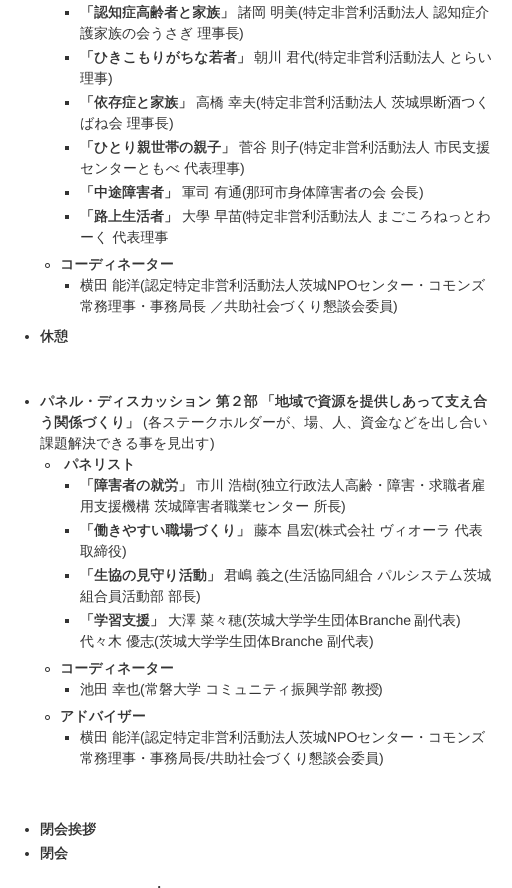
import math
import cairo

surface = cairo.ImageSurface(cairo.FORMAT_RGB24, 512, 888)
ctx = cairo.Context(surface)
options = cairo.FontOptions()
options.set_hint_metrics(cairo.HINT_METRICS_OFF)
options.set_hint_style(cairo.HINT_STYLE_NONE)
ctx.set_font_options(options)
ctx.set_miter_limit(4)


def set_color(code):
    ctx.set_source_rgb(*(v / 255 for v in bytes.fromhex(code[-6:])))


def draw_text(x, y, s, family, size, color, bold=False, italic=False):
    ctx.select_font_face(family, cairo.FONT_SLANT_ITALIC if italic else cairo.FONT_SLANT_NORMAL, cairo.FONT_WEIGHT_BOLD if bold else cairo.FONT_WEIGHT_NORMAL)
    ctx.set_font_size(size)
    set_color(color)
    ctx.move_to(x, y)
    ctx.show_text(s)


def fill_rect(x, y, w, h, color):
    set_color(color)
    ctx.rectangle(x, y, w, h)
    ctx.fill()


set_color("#ffffff")
ctx.paint()
fill_rect(65, 11, 4, 4, "#333333")
draw_text(80, 17, "「認知症高齢者と家族」", "WenQuanYi Zen Hei", 14, "#333333", bold=True)
draw_text(238, 17, "諸岡 明美", "WenQuanYi Zen Hei Medium", 14, "#333333")
draw_text(298, 17, "(", "Liberation Sans", 14, "#333333")
draw_text(303, 17, "特定非営利活動法人 認知症介", "WenQuanYi Zen Hei Medium", 14, "#333333")
draw_text(80, 38, "護家族の会うさぎ 理事長", "WenQuanYi Zen Hei Medium", 14, "#333333")
draw_text(239, 38, ")", "Liberation Sans", 14, "#333333")
fill_rect(65, 56, 4, 4, "#333333")
draw_text(80, 62, "「ひきこもりがちな若者」", "WenQuanYi Zen Hei", 14, "#333333", bold=True)
draw_text(254, 62, "朝川 君代", "WenQuanYi Zen Hei Medium", 14, "#333333")
draw_text(314, 62, "(", "Liberation Sans", 14, "#333333")
draw_text(319, 62, "特定非営利活動法人 とらい", "WenQuanYi Zen Hei Medium", 14, "#333333")
draw_text(80, 83, "理事", "WenQuanYi Zen Hei Medium", 14, "#333333")
draw_text(108, 83, ")", "Liberation Sans", 14, "#333333")
fill_rect(65, 101, 4, 4, "#333333")
draw_text(80, 107, "「依存症と家族」", "WenQuanYi Zen Hei", 14, "#333333", bold=True)
draw_text(196, 107, "高橋 幸夫", "WenQuanYi Zen Hei Medium", 14, "#333333")
draw_text(256, 107, "(", "Liberation Sans", 14, "#333333")
draw_text(261, 107, "特定非営利活動法人 茨城県断酒つく", "WenQuanYi Zen Hei Medium", 14, "#333333")
draw_text(80, 128, "ばね会 理事長", "WenQuanYi Zen Hei Medium", 14, "#333333")
draw_text(169, 128, ")", "Liberation Sans", 14, "#333333")
fill_rect(65, 146, 4, 4, "#333333")
draw_text(80, 152, "「ひとり親世帯の親子」", "WenQuanYi Zen Hei", 14, "#333333", bold=True)
draw_text(239, 152, "菅谷 則子", "WenQuanYi Zen Hei Medium", 14, "#333333")
draw_text(299, 152, "(", "Liberation Sans", 14, "#333333")
draw_text(304, 152, "特定非営利活動法人 市民支援", "WenQuanYi Zen Hei Medium", 14, "#333333")
draw_text(80, 173, "センターともべ 代表理事", "WenQuanYi Zen Hei Medium", 14, "#333333")
draw_text(240, 173, ")", "Liberation Sans", 14, "#333333")
fill_rect(65, 191, 4, 4, "#333333")
draw_text(80, 197, "「中途障害者」", "WenQuanYi Zen Hei", 14, "#333333", bold=True)
draw_text(182, 197, "軍司 有通", "WenQuanYi Zen Hei Medium", 14, "#333333")
draw_text(242, 197, "(", "Liberation Sans", 14, "#333333")
draw_text(246, 197, "那珂市身体障害者の会 会長", "WenQuanYi Zen Hei Medium", 14, "#333333")
draw_text(419, 197, ")", "Liberation Sans", 14, "#333333")
fill_rect(65, 215, 4, 4, "#333333")
draw_text(80, 221, "「路上生活者」", "WenQuanYi Zen Hei", 14, "#333333", bold=True)
draw_text(182, 221, "大學 早苗", "WenQuanYi Zen Hei Medium", 14, "#333333")
draw_text(242, 221, "(", "Liberation Sans", 14, "#333333")
draw_text(246, 221, "特定非営利活動法人 まごころねっとわ", "WenQuanYi Zen Hei Medium", 14, "#333333")
draw_text(80, 242, "ーく 代表理事", "WenQuanYi Zen Hei Medium", 14, "#333333")
ctx.new_path()
ctx.arc(47.5, 265.5, 2, 0, 2 * math.pi)
ctx.set_line_width(1)
ctx.stroke()
draw_text(60, 269, "コーディネーター", "WenQuanYi Zen Hei", 14, "#333333", bold=True)
fill_rect(65, 284, 4, 4, "#333333")
draw_text(80, 290, "横田 能洋", "WenQuanYi Zen Hei Medium", 14, "#333333")
draw_text(140, 290, "(", "Liberation Sans", 14, "#333333")
draw_text(145, 290, "認定特定非営利活動法人茨城", "WenQuanYi Zen Hei Medium", 14, "#333333")
draw_text(327, 290, "NPO", "Liberation Sans", 14, "#333333")
draw_text(357, 290, "センター・コモンズ", "WenQuanYi Zen Hei Medium", 14, "#333333")
draw_text(80, 311, "常務理事・事務局長 ／共助社会づくり懇談会委員", "WenQuanYi Zen Hei Medium", 14, "#333333")
draw_text(393, 311, ")", "Liberation Sans", 14, "#333333")
ctx.new_path()
ctx.arc(27, 337, 2, 0, 2 * math.pi)
ctx.fill()
draw_text(40, 341, "休憩", "WenQuanYi Zen Hei", 14, "#333333", bold=True)
ctx.new_path()
ctx.arc(27, 402, 2, 0, 2 * math.pi)
ctx.fill()
draw_text(40, 406, "パネル・ディスカッション 第２部", "WenQuanYi Zen Hei", 14, "#333333", bold=True)
draw_text(261, 406, "「地域で資源を提供しあって支え合", "WenQuanYi Zen Hei", 14, "#333333", bold=True)
draw_text(40, 427, "う関係づくり」", "WenQuanYi Zen Hei", 14, "#333333", bold=True)
draw_text(143, 427, "(", "Liberation Sans", 14, "#333333")
draw_text(148, 427, "各ステークホルダーが、場、人、資金などを出し合い", "WenQuanYi Zen Hei Medium", 14, "#333333")
draw_text(40, 448, "課題解決できる事を見出す", "WenQuanYi Zen Hei Medium", 14, "#333333")
draw_text(210, 448, ")", "Liberation Sans", 14, "#333333")
ctx.new_path()
ctx.arc(47.5, 465.5, 2, 0, 2 * math.pi)
ctx.stroke()
draw_text(64, 469, "パネリスト", "WenQuanYi Zen Hei", 14, "#333333", bold=True)
fill_rect(65, 484, 4, 4, "#333333")
draw_text(80, 490, "「障害者の就労」", "WenQuanYi Zen Hei", 14, "#333333", bold=True)
draw_text(196, 490, "市川 浩樹", "WenQuanYi Zen Hei Medium", 14, "#333333")
draw_text(256, 490, "(", "Liberation Sans", 14, "#333333")
draw_text(261, 490, "独立行政法人高齢・障害・求職者雇", "WenQuanYi Zen Hei Medium", 14, "#333333")
draw_text(80, 511, "用支援機構 茨城障害者職業センター 所長", "WenQuanYi Zen Hei Medium", 14, "#333333")
draw_text(341, 511, ")", "Liberation Sans", 14, "#333333")
fill_rect(65, 529, 4, 4, "#333333")
draw_text(80, 535, "「働きやすい職場づくり」", "WenQuanYi Zen Hei", 14, "#333333", bold=True)
draw_text(254, 535, "藤本 昌宏", "WenQuanYi Zen Hei Medium", 14, "#333333")
draw_text(314, 535, "(", "Liberation Sans", 14, "#333333")
draw_text(319, 535, "株式会社 ヴィオーラ 代表", "WenQuanYi Zen Hei Medium", 14, "#333333")
draw_text(80, 556, "取締役", "WenQuanYi Zen Hei Medium", 14, "#333333")
draw_text(122, 556, ")", "Liberation Sans", 14, "#333333")
fill_rect(65, 574, 4, 4, "#333333")
draw_text(80, 580, "「生協の見守り活動」", "WenQuanYi Zen Hei", 14, "#333333", bold=True)
draw_text(224, 580, "君嶋 義之", "WenQuanYi Zen Hei Medium", 14, "#333333")
draw_text(284, 580, "(", "Liberation Sans", 14, "#333333")
draw_text(289, 580, "生活協同組合 パルシステム茨城", "WenQuanYi Zen Hei Medium", 14, "#333333")
draw_text(80, 601, "組合員活動部 部長", "WenQuanYi Zen Hei Medium", 14, "#333333")
draw_text(196, 601, ")", "Liberation Sans", 14, "#333333")
fill_rect(65, 619, 4, 4, "#333333")
draw_text(80, 625, "「学習支援」", "WenQuanYi Zen Hei", 14, "#333333", bold=True)
draw_text(168, 625, "大澤 菜々穂", "WenQuanYi Zen Hei Medium", 14, "#333333")
draw_text(242, 625, "(", "Liberation Sans", 14, "#333333")
draw_text(247, 625, "茨城大学学生団体", "WenQuanYi Zen Hei Medium", 14, "#333333")
draw_text(359, 625, "Branche", "Liberation Sans", 14, "#333333")
draw_text(414, 625, "副代表", "WenQuanYi Zen Hei Medium", 14, "#333333")
draw_text(456, 625, ")", "Liberation Sans", 14, "#333333")
draw_text(80, 646, "代々木 優志", "WenQuanYi Zen Hei Medium", 14, "#333333")
draw_text(154, 646, "(", "Liberation Sans", 14, "#333333")
draw_text(159, 646, "茨城大学学生団体", "WenQuanYi Zen Hei Medium", 14, "#333333")
draw_text(271, 646, "Branche", "Liberation Sans", 14, "#333333")
draw_text(327, 646, "副代表", "WenQuanYi Zen Hei Medium", 14, "#333333")
draw_text(369, 646, ")", "Liberation Sans", 14, "#333333")
ctx.new_path()
ctx.arc(47.5, 669.5, 2, 0, 2 * math.pi)
ctx.stroke()
draw_text(60, 673, "コーディネーター", "WenQuanYi Zen Hei", 14, "#333333", bold=True)
fill_rect(65, 688, 4, 4, "#333333")
draw_text(80, 694, "池田 幸也", "WenQuanYi Zen Hei Medium", 14, "#333333")
draw_text(140, 694, "(", "Liberation Sans", 14, "#333333")
draw_text(145, 694, "常磐大学 コミュニティ振興学部 教授", "WenQuanYi Zen Hei Medium", 14, "#333333")
draw_text(378, 694, ")", "Liberation Sans", 14, "#333333")
ctx.new_path()
ctx.arc(47.5, 717.5, 2, 0, 2 * math.pi)
ctx.stroke()
draw_text(60, 721, "アドバイザー", "WenQuanYi Zen Hei", 14, "#333333", bold=True)
fill_rect(65, 736, 4, 4, "#333333")
draw_text(80, 742, "横田 能洋", "WenQuanYi Zen Hei Medium", 14, "#333333")
draw_text(140, 742, "(", "Liberation Sans", 14, "#333333")
draw_text(145, 742, "認定特定非営利活動法人茨城", "WenQuanYi Zen Hei Medium", 14, "#333333")
draw_text(327, 742, "NPO", "Liberation Sans", 14, "#333333")
draw_text(357, 742, "センター・コモンズ", "WenQuanYi Zen Hei Medium", 14, "#333333")
draw_text(80, 763, "常務理事・事務局長", "WenQuanYi Zen Hei Medium", 14, "#333333")
draw_text(206, 763, "/", "Liberation Sans", 14, "#333333")
draw_text(210, 763, "共助社会づくり懇談会委員", "WenQuanYi Zen Hei Medium", 14, "#333333")
draw_text(379, 763, ")", "Liberation Sans", 14, "#333333")
ctx.new_path()
ctx.arc(27, 830, 2, 0, 2 * math.pi)
ctx.fill()
draw_text(40, 834, "閉会挨拶", "WenQuanYi Zen Hei", 14, "#333333", bold=True)
ctx.new_path()
ctx.arc(27, 854, 2, 0, 2 * math.pi)
ctx.fill()
draw_text(40, 858, "閉会", "WenQuanYi Zen Hei", 14, "#333333", bold=True)
draw_text(152, 892, "・", "WenQuanYi Zen Hei Medium", 14, "#333333")
surface.write_to_png("output.png")
